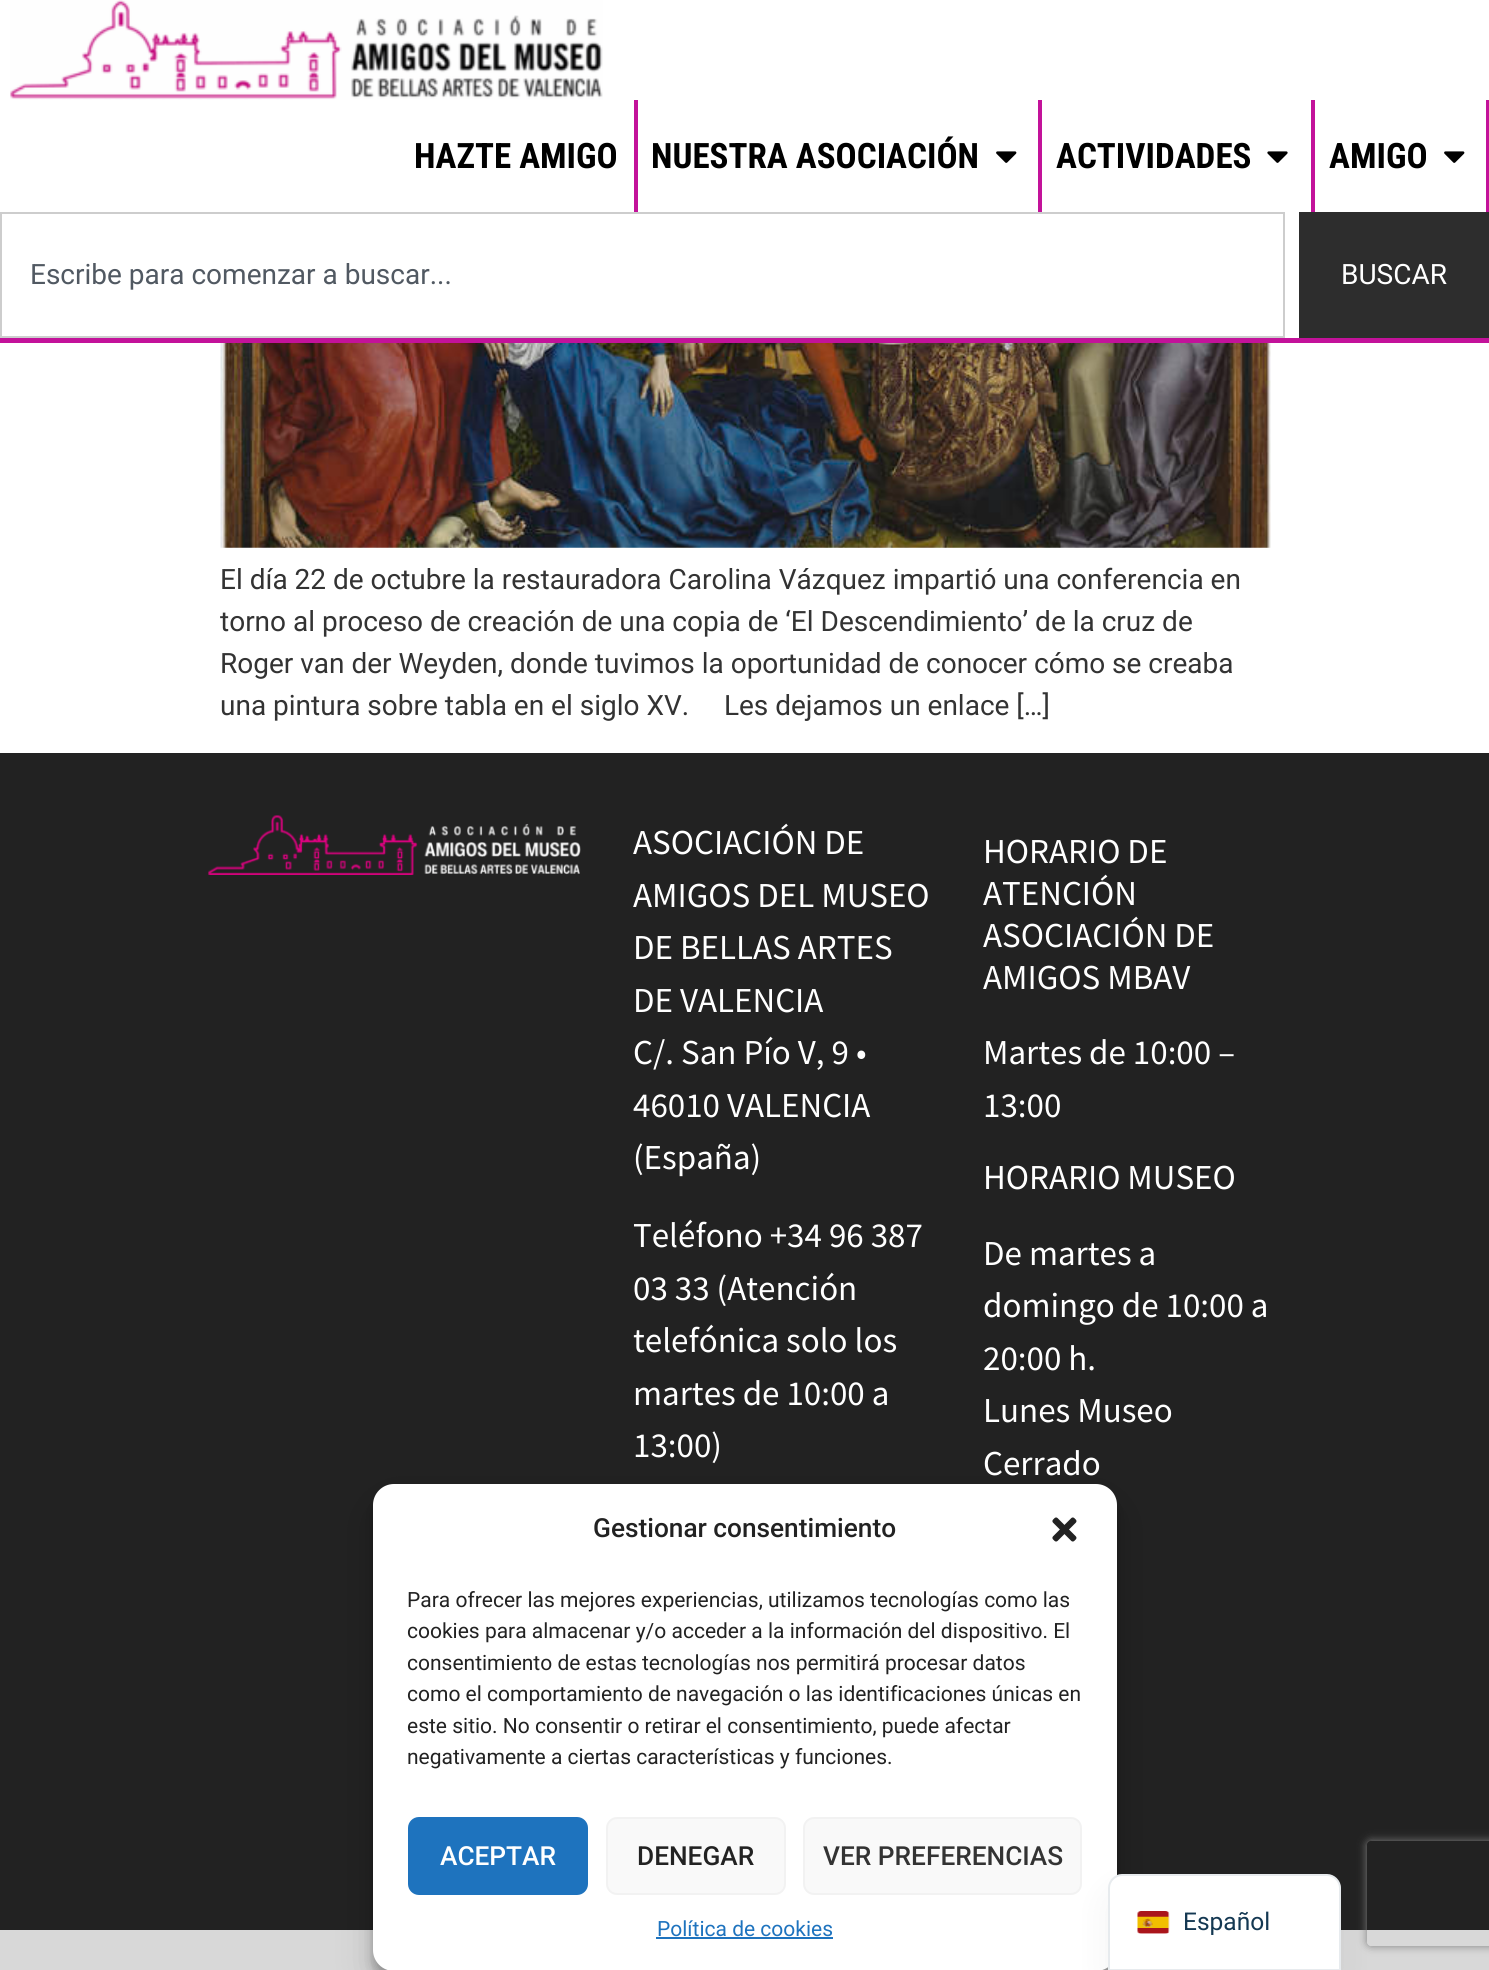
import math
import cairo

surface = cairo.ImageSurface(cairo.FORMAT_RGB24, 1489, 1970)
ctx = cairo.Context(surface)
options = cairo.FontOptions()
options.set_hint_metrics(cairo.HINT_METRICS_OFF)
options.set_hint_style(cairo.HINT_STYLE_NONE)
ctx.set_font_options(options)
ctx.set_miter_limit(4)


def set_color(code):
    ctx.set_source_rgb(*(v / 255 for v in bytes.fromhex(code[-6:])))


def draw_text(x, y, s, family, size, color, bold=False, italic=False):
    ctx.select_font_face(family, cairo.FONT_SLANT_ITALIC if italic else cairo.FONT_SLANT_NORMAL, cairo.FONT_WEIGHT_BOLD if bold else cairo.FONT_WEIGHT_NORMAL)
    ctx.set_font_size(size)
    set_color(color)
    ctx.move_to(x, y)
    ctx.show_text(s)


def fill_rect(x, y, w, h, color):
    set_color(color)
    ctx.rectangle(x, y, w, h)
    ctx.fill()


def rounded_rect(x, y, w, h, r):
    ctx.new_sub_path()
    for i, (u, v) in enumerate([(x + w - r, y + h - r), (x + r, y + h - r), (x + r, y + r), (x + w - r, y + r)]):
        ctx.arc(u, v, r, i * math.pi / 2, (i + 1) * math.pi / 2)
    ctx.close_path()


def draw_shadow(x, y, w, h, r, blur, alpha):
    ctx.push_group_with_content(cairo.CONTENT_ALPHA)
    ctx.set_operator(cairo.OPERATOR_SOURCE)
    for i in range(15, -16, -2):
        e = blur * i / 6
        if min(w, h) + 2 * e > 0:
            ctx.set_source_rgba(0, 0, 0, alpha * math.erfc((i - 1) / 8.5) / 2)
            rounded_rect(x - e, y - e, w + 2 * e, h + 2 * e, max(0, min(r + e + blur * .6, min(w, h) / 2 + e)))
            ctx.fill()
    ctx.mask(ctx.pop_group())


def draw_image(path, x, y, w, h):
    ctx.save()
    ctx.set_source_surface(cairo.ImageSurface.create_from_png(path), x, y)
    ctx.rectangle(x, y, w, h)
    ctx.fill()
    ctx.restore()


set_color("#ffffff")
ctx.paint()
fill_rect(0, 338, 1489, 5, "#c3129a")
draw_image("assets/img1.png", 10, 0, 593, 100)
fill_rect(634, 100, 4, 112, "#c3129a")
draw_text(414, 168, "HAZTE AMIGO", "Roboto Condensed", 35, "#000000", bold=True)
fill_rect(1038, 100, 4, 112, "#c3129a")
draw_text(651, 168, "NUESTRA ASOCIACIÓN", "Roboto Condensed", 35, "#000000", bold=True)
draw_image("assets/img2.png", 996, 151, 21, 12)
fill_rect(1311, 100, 4, 112, "#c3129a")
draw_text(1056, 168, "ACTIVIDADES", "Roboto Condensed", 35, "#000000", bold=True)
draw_image("assets/img3.png", 1267, 151, 21, 12)
fill_rect(1486, 100, 3, 112, "#c3129a")
draw_text(1329, 168, "AMIGO", "Roboto Condensed", 35, "#000000", bold=True)
draw_image("assets/img2.png", 1444, 151, 21, 12)
ctx.rectangle(1, 213, 1283, 124)
set_color("#cdcdcd")
ctx.stroke()
draw_text(30, 284, "Escribe para comenzar a buscar...", "Roboto", 28, "#515962")
fill_rect(1299, 212, 190, 126, "#2d2d2d")
draw_text(1341, 284, "BUSCAR", "Roboto", 28, "#ffffff")
draw_image("assets/img4.png", 220, 343, 1051, 205)
draw_text(220, 589, "El día 22 de octubre la restauradora Carolina Vázquez impartió una conferencia en", "Roboto", 28, "#333333")
draw_text(220, 631, "torno al proceso de creación de una copia de ‘El Descendimiento’ de la cruz de", "Roboto", 28, "#333333")
draw_text(220, 673, "Roger van der Weyden, donde tuvimos la oportunidad de conocer cómo se creaba", "Roboto", 28, "#333333")
draw_text(220, 715, "una pintura sobre tabla en el siglo XV.     Les dejamos un enlace […]", "Roboto", 28, "#333333")
fill_rect(0, 753, 1489, 1177, "#222222")
draw_image("assets/img5.png", 208, 815, 373, 60)
draw_text(633, 854, "ASOCIACIÓN DE", "Source Sans Pro", 35, "#ffffff")
draw_text(633, 907, "AMIGOS DEL MUSEO", "Source Sans Pro", 35, "#ffffff")
draw_text(633, 959, "DE BELLAS ARTES", "Source Sans Pro", 35, "#ffffff")
draw_text(633, 1012, "DE VALENCIA", "Source Sans Pro", 35, "#ffffff")
draw_text(633, 1064, "C/. San Pío V, 9 •", "Source Sans Pro", 35, "#ffffff")
draw_text(633, 1117, "46010 VALENCIA", "Source Sans Pro", 35, "#ffffff")
draw_text(633, 1169, "(España)", "Source Sans Pro", 35, "#ffffff")
draw_text(633, 1247, "Teléfono +34 96 387", "Source Sans Pro", 35, "#ffffff")
draw_text(633, 1300, "03 33 (Atención", "Source Sans Pro", 35, "#ffffff")
draw_text(633, 1352, "telefónica solo los", "Source Sans Pro", 35, "#ffffff")
draw_text(633, 1405, "martes de 10:00 a", "Source Sans Pro", 35, "#ffffff")
draw_text(633, 1457, "13:00)", "Source Sans Pro", 35, "#ffffff")
draw_text(983, 863, "HORARIO DE", "Source Sans Pro", 35, "#ffffff")
draw_text(983, 905, "ATENCIÓN", "Source Sans Pro", 35, "#ffffff")
draw_text(983, 947, "ASOCIACIÓN DE", "Source Sans Pro", 35, "#ffffff")
draw_text(983, 989, "AMIGOS MBAV", "Source Sans Pro", 35, "#ffffff")
draw_text(983, 1064, "Martes de 10:00 –", "Source Sans Pro", 35, "#ffffff")
draw_text(983, 1117, "13:00", "Source Sans Pro", 35, "#ffffff")
draw_text(983, 1189, "HORARIO MUSEO", "Source Sans Pro", 35, "#ffffff")
draw_text(983, 1265, "De martes a", "Source Sans Pro", 35, "#ffffff")
draw_text(983, 1317, "domingo de 10:00 a", "Source Sans Pro", 35, "#ffffff")
draw_text(983, 1370, "20:00 h.", "Source Sans Pro", 35, "#ffffff")
draw_text(983, 1422, "Lunes Museo", "Source Sans Pro", 35, "#ffffff")
draw_text(983, 1475, "Cerrado", "Source Sans Pro", 35, "#ffffff")
fill_rect(0, 1930, 1489, 40, "#d8d8d8")
set_color("#000000")
draw_shadow(373, 1495, 744, 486, 21, 5, 0.23)
draw_shadow(373, 1502, 744, 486, 21, 17.5, 0.19)
set_color("#ffffff")
rounded_rect(373, 1484, 744, 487, 21)
ctx.fill()
draw_text(593, 1537, "Gestionar consentimiento", "Roboto Medium", 26.25, "#222222")
draw_image("assets/img6.png", 1052, 1517, 25, 25)
draw_text(407, 1607, "Para ofrecer las mejores experiencias, utilizamos tecnologías como las", "Roboto", 21, "#222222")
draw_text(407, 1638, "cookies para almacenar y/o acceder a la información del dispositivo. El", "Roboto", 21, "#222222")
draw_text(407, 1670, "consentimiento de estas tecnologías nos permitirá procesar datos", "Roboto", 21, "#222222")
draw_text(407, 1701, "como el comportamiento de navegación o las identificaciones únicas en", "Roboto", 21, "#222222")
draw_text(407, 1733, "este sitio. No consentir o retirar el consentimiento, puede afectar", "Roboto", 21, "#222222")
draw_text(407, 1764, "negativamente a ciertas características y funciones.", "Roboto", 21, "#222222")
set_color("#1e73be")
rounded_rect(409, 1818, 178, 76, 10)
ctx.fill_preserve()
ctx.stroke()
draw_text(440, 1865, "ACEPTAR", "Roboto Medium", 26.25, "#ffffff")
set_color("#f9f9f9")
rounded_rect(607, 1818, 178, 76, 10)
ctx.fill_preserve()
set_color("#f2f2f2")
ctx.stroke()
draw_text(637, 1865, "DENEGAR", "Roboto Medium", 26.25, "#222222")
set_color("#f9f9f9")
rounded_rect(804, 1818, 277, 76, 10)
ctx.fill_preserve()
set_color("#f2f2f2")
ctx.stroke()
draw_text(823, 1865, "VER PREFERENCIAS", "Roboto Medium", 26.25, "#333333")
draw_text(657, 1936, "Política de cookies", "Roboto", 21, "#1e73be")
fill_rect(656, 1937, 177, 2, "#1e73be")
set_color("#000000")
draw_shadow(1108, 1892, 233, 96, 14, 17.5, 0.05)
set_color("#ffffff")
ctx.new_path()
ctx.move_to(1122, 1874)
ctx.line_to(1327, 1874)
ctx.curve_to(1334.5, 1874, 1341, 1880.5, 1341, 1888)
ctx.line_to(1341, 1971)
ctx.line_to(1108, 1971)
ctx.line_to(1108, 1888)
ctx.curve_to(1108, 1880.5, 1114.5, 1874, 1122, 1874)
ctx.close_path()
ctx.fill()
ctx.new_path()
ctx.move_to(1122, 1875)
ctx.line_to(1327, 1875)
ctx.curve_to(1334, 1875, 1340, 1881, 1340, 1888)
ctx.line_to(1340, 1970)
ctx.line_to(1109, 1970)
ctx.line_to(1109, 1888)
ctx.curve_to(1109, 1881, 1115, 1875, 1122, 1875)
ctx.close_path()
ctx.set_source_rgba(0.078, 0.22, 0.322, 0.1)
ctx.stroke()
draw_image("assets/img7.png", 1137, 1911, 33, 23)
draw_text(1183, 1930, "Español", "Roboto", 24.5, "#143852")
ctx.save()
ctx.set_fill_rule(cairo.FILL_RULE_EVEN_ODD)
ctx.new_path()
ctx.move_to(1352, 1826)
ctx.line_to(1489, 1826)
ctx.line_to(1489, 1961)
ctx.line_to(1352, 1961)
ctx.close_path()
ctx.move_to(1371, 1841)
ctx.line_to(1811, 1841)
ctx.curve_to(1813, 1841, 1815, 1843, 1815, 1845)
ctx.line_to(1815, 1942)
ctx.curve_to(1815, 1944, 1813, 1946, 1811, 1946)
ctx.line_to(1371, 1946)
ctx.curve_to(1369, 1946, 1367, 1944, 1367, 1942)
ctx.line_to(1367, 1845)
ctx.curve_to(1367, 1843, 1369, 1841, 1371, 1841)
ctx.close_path()
ctx.clip()
set_color("#808080")
draw_shadow(1367, 1841, 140, 105, 4, 4.5, 1)
ctx.restore()
surface.write_to_png("output.png")
